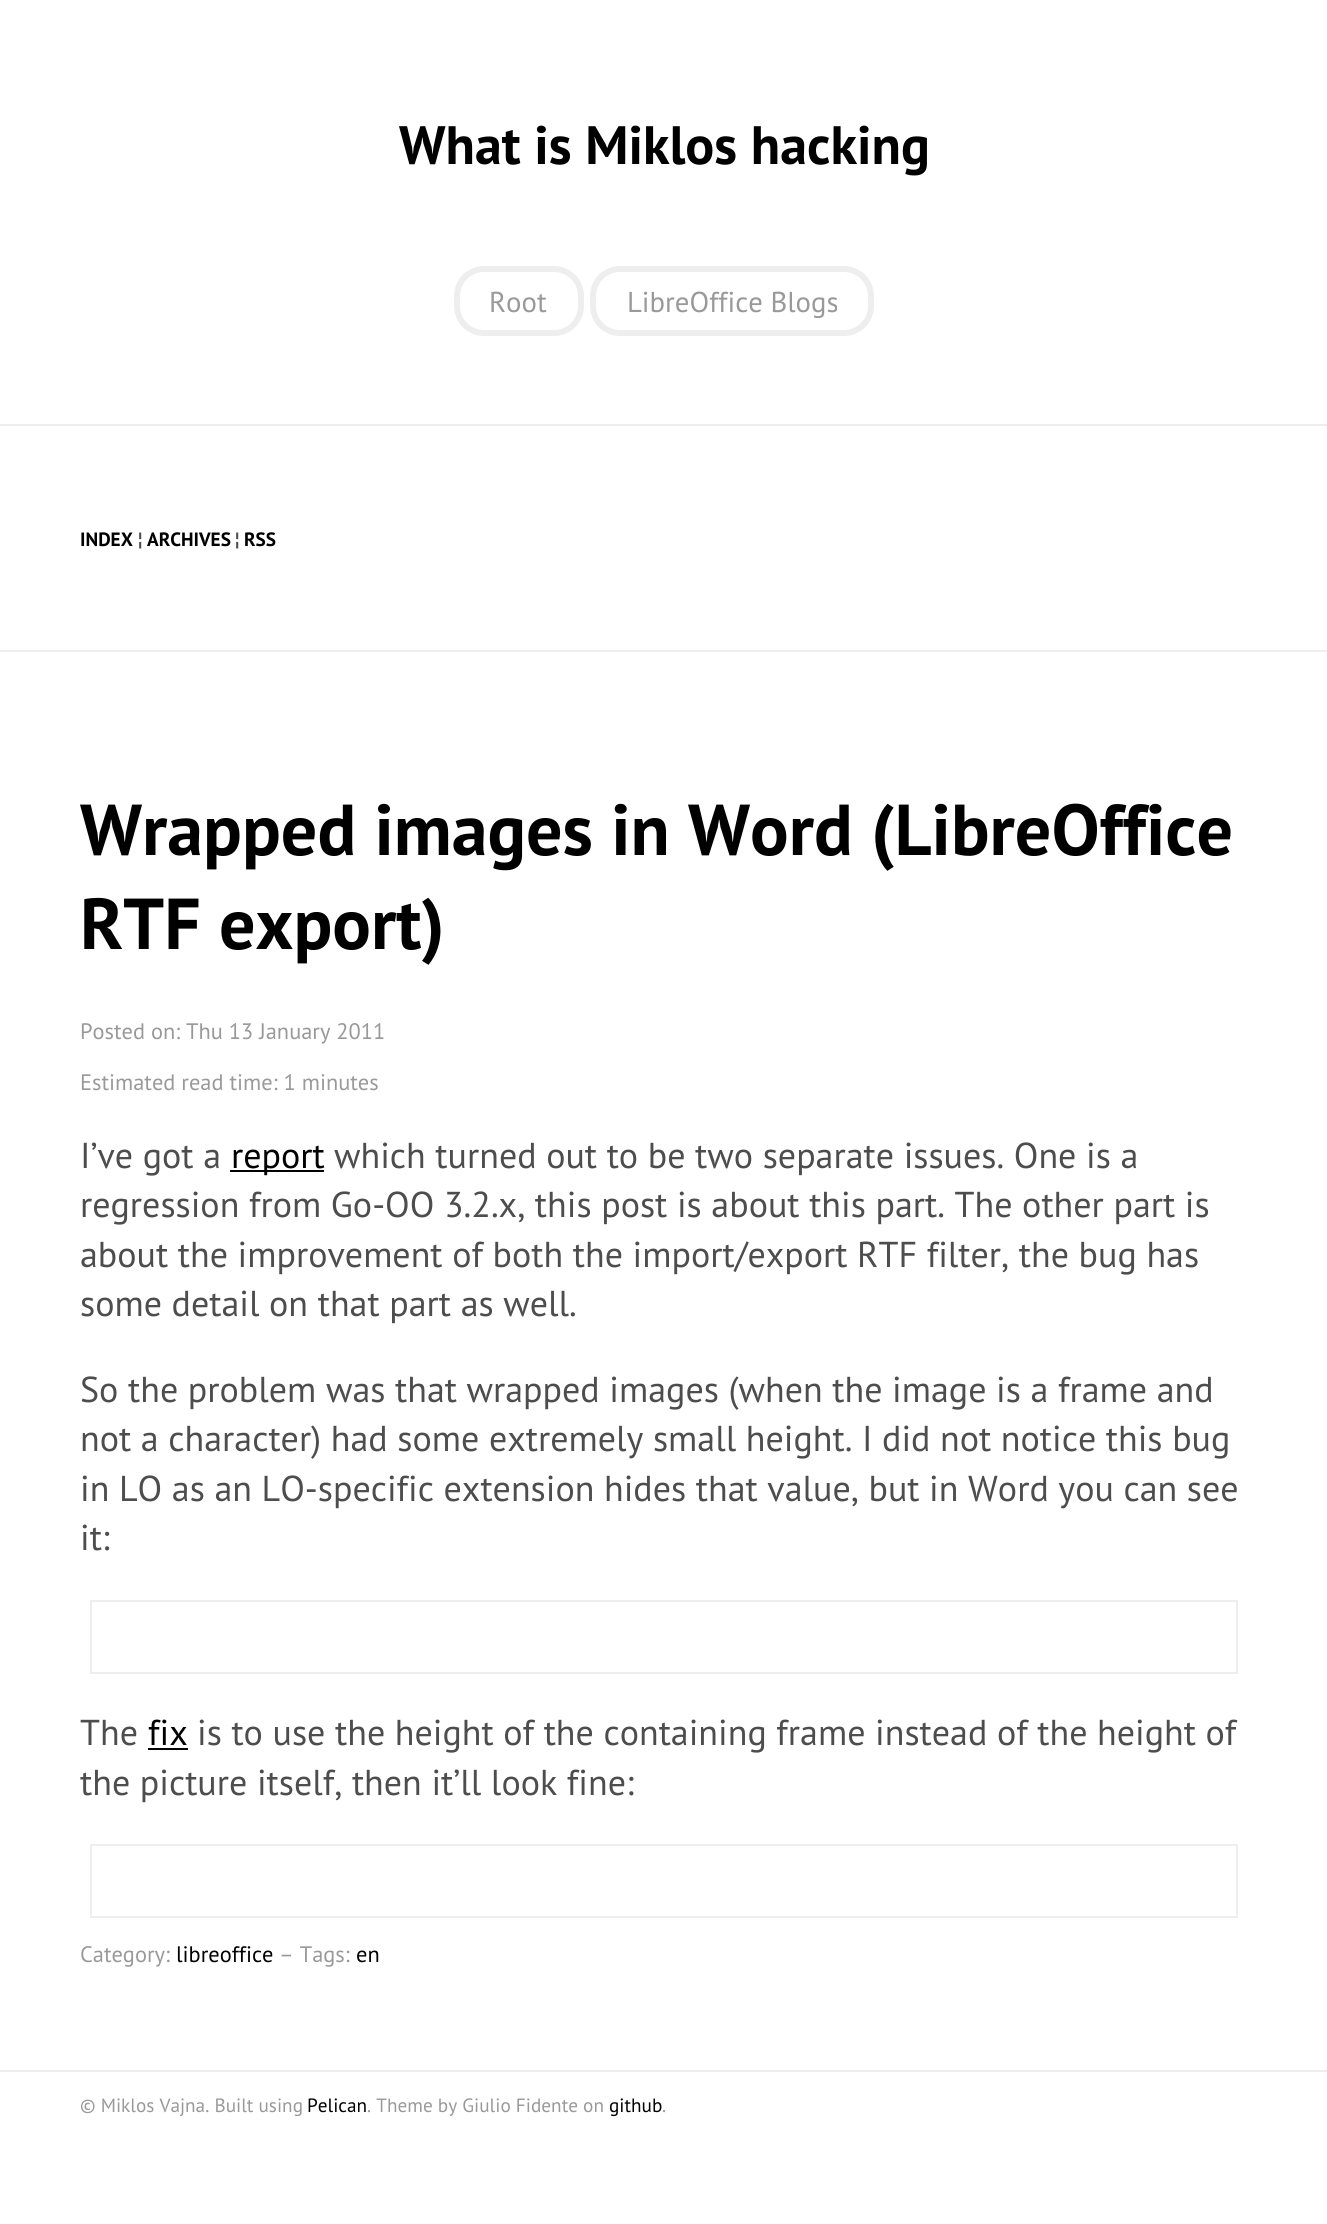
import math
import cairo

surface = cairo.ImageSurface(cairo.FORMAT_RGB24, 1327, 2224)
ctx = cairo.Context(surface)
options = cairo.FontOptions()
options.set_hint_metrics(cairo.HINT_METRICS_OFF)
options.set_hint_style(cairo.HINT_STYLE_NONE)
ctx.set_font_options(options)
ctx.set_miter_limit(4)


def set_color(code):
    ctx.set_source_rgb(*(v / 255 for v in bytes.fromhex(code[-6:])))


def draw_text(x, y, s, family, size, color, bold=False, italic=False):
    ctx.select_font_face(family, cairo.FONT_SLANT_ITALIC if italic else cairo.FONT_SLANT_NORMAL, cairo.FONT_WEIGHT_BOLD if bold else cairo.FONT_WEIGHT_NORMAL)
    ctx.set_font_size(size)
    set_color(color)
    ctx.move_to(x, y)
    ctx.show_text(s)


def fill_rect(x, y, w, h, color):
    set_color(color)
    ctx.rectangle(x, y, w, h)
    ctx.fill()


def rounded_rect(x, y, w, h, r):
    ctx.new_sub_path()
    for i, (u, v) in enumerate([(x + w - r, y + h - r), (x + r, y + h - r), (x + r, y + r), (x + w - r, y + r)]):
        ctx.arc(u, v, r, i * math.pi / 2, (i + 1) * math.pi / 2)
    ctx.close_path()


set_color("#ffffff")
ctx.paint()
draw_text(399, 164, "What is Miklos hacking", "PT Sans", 54, "#000000", bold=True)
rounded_rect(457, 269, 124, 64, 27)
set_color("#eeeeee")
ctx.set_line_width(6)
ctx.stroke()
draw_text(489, 312, "Root", "PT Sans", 28.75, "#999999")
rounded_rect(593, 269, 278, 64, 27)
set_color("#eeeeee")
ctx.stroke()
draw_text(627, 312, "LibreOffice Blogs", "PT Sans", 28.75, "#999999")
fill_rect(0, 424, 1327, 2, "#eeeeee")
fill_rect(0, 650, 1327, 2, "#eeeeee")
draw_text(80, 546, "INDEX", "PT Sans", 19.25, "#000000", bold=True)
draw_text(138, 546, "¦", "PT Sans", 19.25, "#4d4d4d", bold=True)
draw_text(147, 546, "ARCHIVES", "PT Sans", 19.25, "#000000", bold=True)
draw_text(235, 546, "¦", "PT Sans", 19.25, "#4d4d4d", bold=True)
draw_text(244, 546, "RSS", "PT Sans", 19.25, "#000000", bold=True)
draw_text(80, 855, "Wrapped images in Word (LibreOffice", "PT Sans", 72, "#000000", bold=True)
draw_text(80, 949, "RTF export)", "PT Sans", 72, "#000000", bold=True)
draw_text(80, 1039, "Posted on: Thu 13 January 2011", "PT Sans", 22.4, "#999999")
draw_text(80, 1090, "Estimated read time: 1 minutes", "PT Sans", 22.4, "#999999")
draw_text(80, 1168, "I’ve got a", "PT Sans", 36, "#4d4d4d")
fill_rect(230, 1170, 94, 2, "#000000")
draw_text(231, 1168, "report", "PT Sans", 36, "#000000")
draw_text(334, 1168, "which turned out to be two separate issues. One is a", "PT Sans", 36, "#4d4d4d")
draw_text(80, 1217, "regression from Go-OO 3.2.x, this post is about this part. The other part is", "PT Sans", 36, "#4d4d4d")
draw_text(80, 1267, "about the improvement of both the import/export RTF filter, the bug has", "PT Sans", 36, "#4d4d4d")
draw_text(80, 1316, "some detail on that part as well.", "PT Sans", 36, "#4d4d4d")
draw_text(80, 1402, "So the problem was that wrapped images (when the image is a frame and", "PT Sans", 36, "#4d4d4d")
draw_text(80, 1451, "not a character) had some extremely small height. I did not notice this bug", "PT Sans", 36, "#4d4d4d")
draw_text(80, 1501, "in LO as an LO-specific extension hides that value, but in Word you can see", "PT Sans", 36, "#4d4d4d")
draw_text(80, 1550, "it:", "PT Sans", 36, "#4d4d4d")
ctx.rectangle(91, 1601, 1146, 72)
set_color("#eeeeee")
ctx.set_line_width(2)
ctx.stroke()
draw_text(80, 1745, "The", "PT Sans", 36, "#4d4d4d")
draw_text(148, 1745, "fix", "PT Sans", 36, "#000000")
fill_rect(148, 1748, 40, 2, "#000000")
draw_text(197, 1745, "is to use the height of the containing frame instead of the height of", "PT Sans", 36, "#4d4d4d")
draw_text(80, 1795, "the picture itself, then it’ll look fine:", "PT Sans", 36, "#4d4d4d")
ctx.rectangle(91, 1845, 1146, 72)
set_color("#eeeeee")
ctx.stroke()
draw_text(80, 1962, "Category:", "PT Sans", 22.4, "#999999")
draw_text(176, 1962, "libreoffice", "PT Sans", 22.4, "#000000")
draw_text(279, 1962, "– Tags:", "PT Sans", 22.4, "#999999")
draw_text(356, 1962, "en", "PT Sans", 22.4, "#000000")
fill_rect(0, 2070, 1327, 2, "#eeeeee")
draw_text(80, 2112, "© Miklos Vajna. Built using", "PT Sans", 19.25, "#999999")
draw_text(307, 2112, "Pelican", "PT Sans", 19.25, "#000000")
draw_text(367, 2112, ". Theme by Giulio Fidente on", "PT Sans", 19.25, "#999999")
draw_text(609, 2112, "github", "PT Sans", 19.25, "#000000")
draw_text(662, 2112, ".", "PT Sans", 19.25, "#999999")
surface.write_to_png("output.png")
